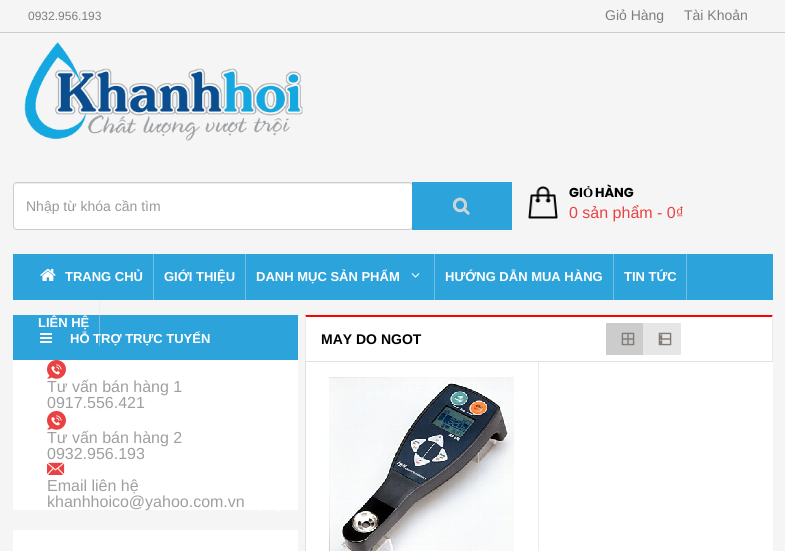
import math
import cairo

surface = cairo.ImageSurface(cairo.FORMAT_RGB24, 785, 551)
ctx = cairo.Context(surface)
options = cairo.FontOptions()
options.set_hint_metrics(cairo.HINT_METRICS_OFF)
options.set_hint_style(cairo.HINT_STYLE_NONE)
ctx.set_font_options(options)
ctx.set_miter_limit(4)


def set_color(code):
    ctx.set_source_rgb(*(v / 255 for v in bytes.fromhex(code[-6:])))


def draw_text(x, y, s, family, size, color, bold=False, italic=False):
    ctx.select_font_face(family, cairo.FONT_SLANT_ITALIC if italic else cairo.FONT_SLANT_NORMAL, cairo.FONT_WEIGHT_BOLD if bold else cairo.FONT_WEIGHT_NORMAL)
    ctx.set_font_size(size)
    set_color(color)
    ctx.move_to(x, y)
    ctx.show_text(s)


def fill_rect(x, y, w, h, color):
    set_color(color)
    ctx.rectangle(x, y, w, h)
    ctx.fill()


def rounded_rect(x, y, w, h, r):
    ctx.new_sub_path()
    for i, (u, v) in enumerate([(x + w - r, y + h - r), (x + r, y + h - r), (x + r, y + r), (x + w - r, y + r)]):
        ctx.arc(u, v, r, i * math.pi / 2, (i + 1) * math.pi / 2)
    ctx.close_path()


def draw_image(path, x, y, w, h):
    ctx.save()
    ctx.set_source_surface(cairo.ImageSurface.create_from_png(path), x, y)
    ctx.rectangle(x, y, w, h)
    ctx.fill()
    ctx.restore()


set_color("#f5f5f5")
ctx.paint()
fill_rect(0, 32, 785, 1, "#cccccc")
draw_text(28, 20, "0932.956.193", "Liberation Sans", 12, "#837c76")
draw_text(605, 20, "Giỏ Hàng", "Liberation Sans", 14, "#837c76")
draw_text(684, 20, "Tài Khoản", "Liberation Sans", 14, "#837c76")
draw_image("assets/img1.png", 24, 42, 279, 99)
set_color("#ffffff")
rounded_rect(13, 182, 400, 48, 4)
ctx.fill()
set_color("#ececec")
ctx.new_path()
ctx.move_to(17, 184)
ctx.line_to(409, 184)
ctx.curve_to(411, 184, 412, 185, 412, 187)
ctx.curve_to(412, 185, 411, 183, 409, 183)
ctx.line_to(17, 183)
ctx.line_to(15, 184)
ctx.line_to(14, 187)
ctx.curve_to(14, 185, 15, 184, 17, 184)
ctx.close_path()
ctx.fill()
rounded_rect(13.5, 182.5, 399, 47, 3.5)
set_color("#cccccc")
ctx.set_line_width(1)
ctx.stroke()
draw_text(26, 211, "Nhập từ khóa cần tìm", "Liberation Sans", 14, "#999999")
fill_rect(412, 182, 100, 48, "#2da3dc")
draw_image("assets/img2.png", 453, 197, 17, 18)
draw_image("assets/img3.png", 528, 186, 30, 33)
draw_text(569, 197, "GI", "Poppins", 13, "#000000", bold=True)
draw_text(583, 197, "Ỏ", "Liberation Serif", 13, "#000000", bold=True)
draw_text(595, 197, "HÀNG", "Poppins", 13, "#000000", bold=True)
draw_text(569, 218, "0 sản phẩm - 0₫", "Liberation Sans", 16, "#ea4242")
fill_rect(13, 254, 760, 46, "#2da3dc")
draw_image("assets/img4.png", 40, 268, 16, 13)
fill_rect(153, 254, 1, 46, "#74bce0")
draw_text(65, 281, "TRANG CHỦ", "Liberation Sans", 13, "#ffffff", bold=True)
fill_rect(245, 254, 1, 46, "#74bce0")
draw_text(164, 281, "GIỚI THIỆU", "Liberation Sans", 13, "#ffffff", bold=True)
fill_rect(434, 254, 1, 46, "#74bce0")
draw_text(256, 281, "DANH MỤC SẢN PHẨM", "Liberation Sans", 13, "#ffffff", bold=True)
draw_image("assets/img5.png", 411, 273, 9, 5)
fill_rect(613, 254, 1, 46, "#74bce0")
draw_text(445, 281, "HƯỚNG DẪN MUA HÀNG", "Liberation Sans", 13, "#ffffff", bold=True)
fill_rect(686, 254, 1, 46, "#74bce0")
draw_text(624, 281, "TIN TỨC", "Liberation Sans", 13, "#ffffff", bold=True)
fill_rect(13, 315, 285, 45, "#2da3dc")
draw_text(70, 343, "HỖ TRỢ TRỰC TUYẾN", "Liberation Sans", 13, "#ffffff", bold=True)
ctx.set_source_rgba(0.886, 0.894, 0.902, 0.39)
ctx.rectangle(99, 300, 1, 46)
ctx.fill()
draw_text(38, 327, "LIÊN HỆ", "Liberation Sans", 13, "#ffffff", bold=True)
fill_rect(13, 360, 285, 150, "#ffffff")
draw_image("assets/img6.png", 40, 333, 12, 10)
draw_image("assets/img7.png", 47, 360, 19, 19)
draw_text(47, 392, "Tư vấn bán hàng 1", "Liberation Sans", 16, "#9f9f9f")
draw_text(47, 408, "0917.556.421", "Liberation Sans", 16, "#9f9f9f")
draw_image("assets/img7.png", 47, 411, 19, 19)
draw_text(47, 443, "Tư vấn bán hàng 2", "Liberation Sans", 16, "#9f9f9f")
draw_text(47, 459, "0932.956.193", "Liberation Sans", 16, "#9f9f9f")
draw_image("assets/img8.png", 47, 462, 18, 13)
draw_text(47, 491, "Email liên hệ", "Liberation Sans", 16, "#9f9f9f")
draw_text(47, 507, "khanhhoico@yahoo.com.vn", "Liberation Sans", 16, "#9f9f9f")
fill_rect(13, 530, 285, 21, "#ffffff")
draw_image("assets/img9.png", 259, 510, 4, 4)
fill_rect(276, 510, 3, 3, "#fafafa")
fill_rect(305, 315, 468, 236, "#ffffff")
set_color("#ff0000")
ctx.new_path()
ctx.move_to(305, 315)
ctx.line_to(773, 315)
ctx.line_to(772, 317)
ctx.line_to(306, 317)
ctx.close_path()
ctx.fill()
set_color("#ebebeb")
ctx.new_path()
ctx.move_to(773, 315)
ctx.line_to(773, 361)
ctx.line_to(772, 361)
ctx.line_to(772, 317)
ctx.close_path()
ctx.fill()
ctx.new_path()
ctx.move_to(305, 361)
ctx.line_to(305, 315)
ctx.line_to(306, 317)
ctx.line_to(306, 361)
ctx.close_path()
ctx.fill()
draw_text(321, 344, "MAY DO NGOT", "Liberation Sans", 14, "#000000", bold=True)
fill_rect(606, 323, 37, 32, "#cccccc")
draw_image("assets/img10.png", 621, 332, 14, 14)
fill_rect(643, 323, 38, 32, "#e6e6e6")
draw_image("assets/img11.png", 658, 332, 14, 14)
fill_rect(305, 361, 468, 1, "#e1e1e1")
fill_rect(305, 361, 1, 190, "#e1e1e1")
fill_rect(538, 362, 1, 189, "#ebebeb")
draw_image("assets/img12.png", 329, 377, 185, 174)
surface.write_to_png("output.png")
